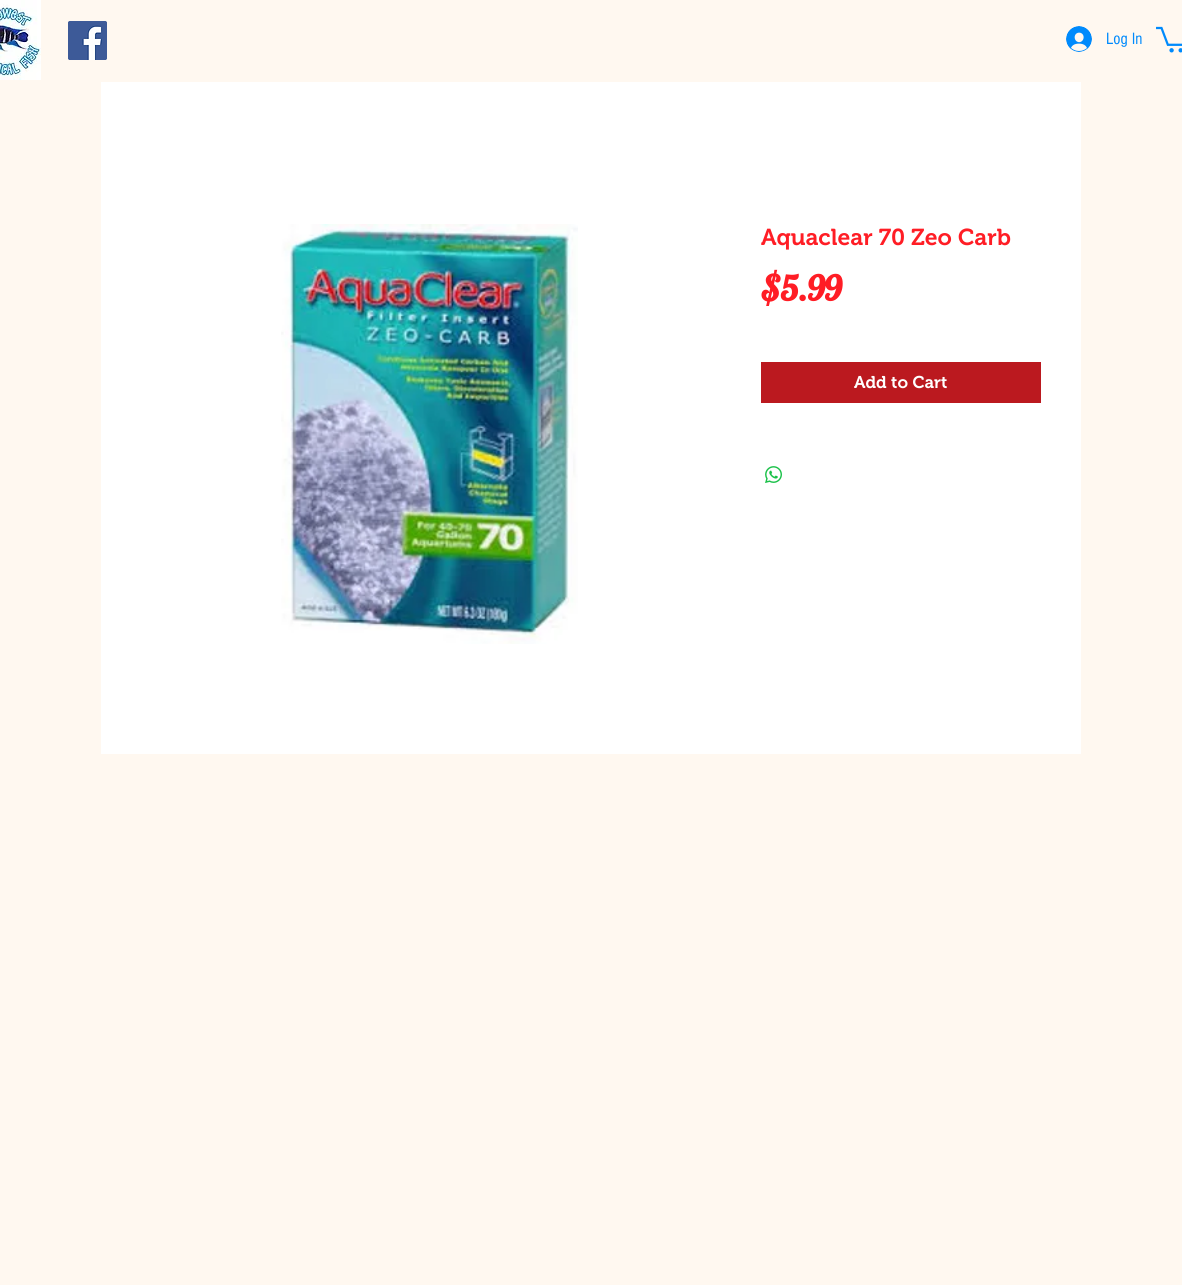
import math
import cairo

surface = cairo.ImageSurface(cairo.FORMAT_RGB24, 1182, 1285)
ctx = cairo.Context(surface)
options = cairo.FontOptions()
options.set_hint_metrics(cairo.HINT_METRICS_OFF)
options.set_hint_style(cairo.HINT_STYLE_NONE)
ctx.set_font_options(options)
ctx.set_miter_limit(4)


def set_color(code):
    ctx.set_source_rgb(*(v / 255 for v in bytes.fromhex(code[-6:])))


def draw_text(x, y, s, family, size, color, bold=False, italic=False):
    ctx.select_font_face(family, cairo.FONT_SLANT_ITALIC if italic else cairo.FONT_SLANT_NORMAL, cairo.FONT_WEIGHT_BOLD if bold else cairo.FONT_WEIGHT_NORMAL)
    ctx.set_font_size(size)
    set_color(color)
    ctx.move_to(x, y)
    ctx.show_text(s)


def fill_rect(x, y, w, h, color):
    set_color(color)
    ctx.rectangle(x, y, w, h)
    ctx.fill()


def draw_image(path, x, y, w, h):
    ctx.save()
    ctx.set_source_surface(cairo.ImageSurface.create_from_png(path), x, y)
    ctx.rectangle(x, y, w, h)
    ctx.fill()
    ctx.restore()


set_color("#fff8f0")
ctx.paint()
draw_image("assets/img1.png", 0, 0, 41, 80)
draw_image("assets/img2.png", 68, 21, 39, 39)
draw_image("assets/img3.png", 1066, 26, 26, 26)
draw_text(1106, 44, "Log In", "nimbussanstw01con", 17, "#008afc")
draw_image("assets/img4.png", 1156, 26, 26, 27)
fill_rect(101, 82, 980, 672, "#ffffff")
draw_image("assets/img5.png", 281, 224, 297, 420)
draw_text(761, 245, "Aquaclear 70 Zeo Carb", "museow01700 SemiBold", 23, "#ff1d25")
draw_text(761, 301, "$5.99", "Lobster", 35, "#ff1d25", bold=True)
fill_rect(761, 362, 280, 41, "#bb191f")
draw_text(854, 388, "Add to Cart", "museow01700 SemiBold", 17, "#ffffff")
draw_image("assets/img6.png", 765, 466, 17, 17)
surface.write_to_png("output.png")
